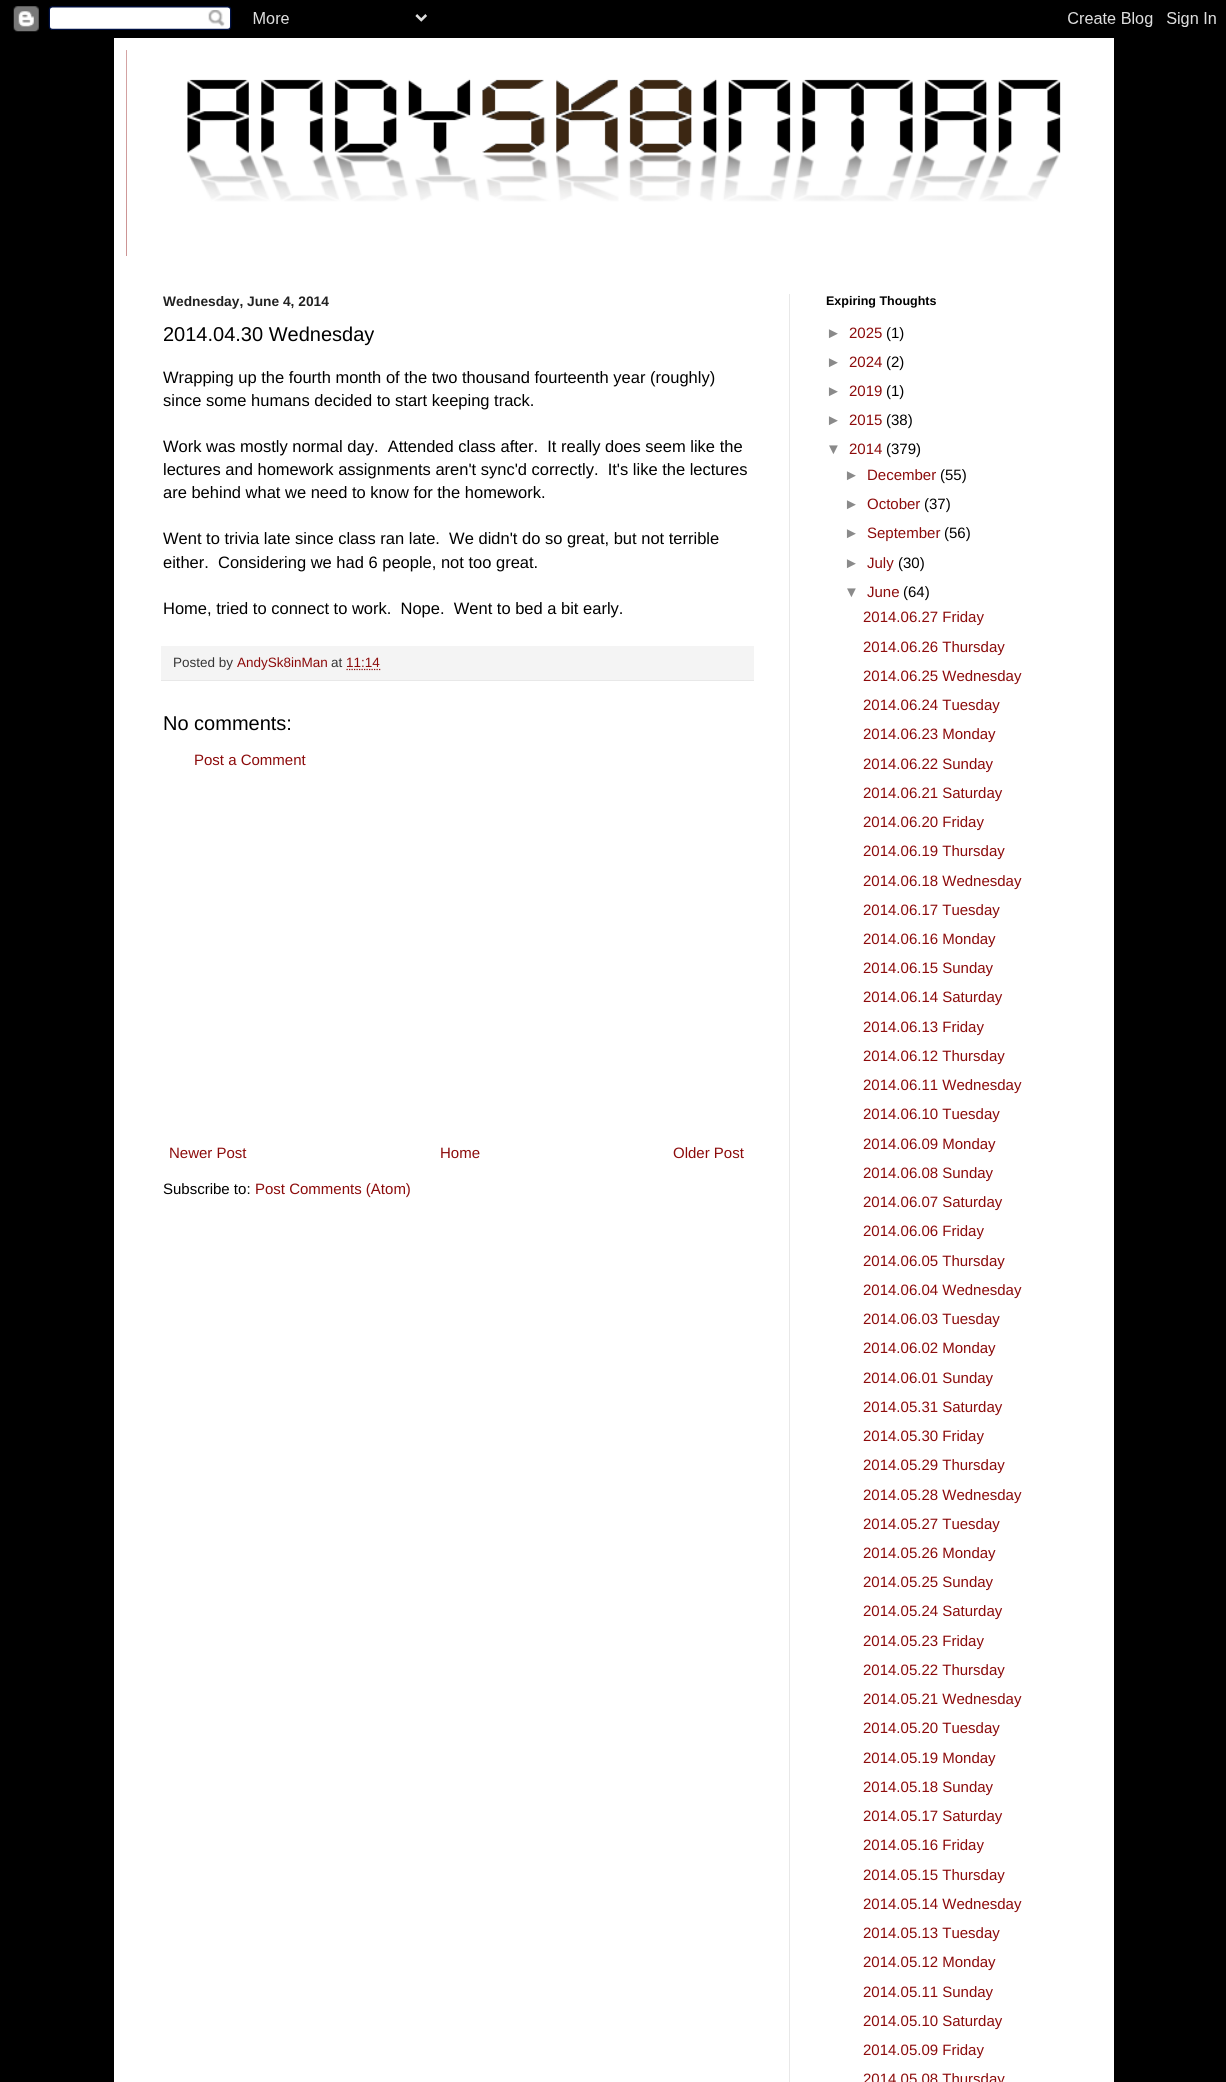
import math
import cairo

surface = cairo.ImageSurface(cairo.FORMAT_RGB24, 1226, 2082)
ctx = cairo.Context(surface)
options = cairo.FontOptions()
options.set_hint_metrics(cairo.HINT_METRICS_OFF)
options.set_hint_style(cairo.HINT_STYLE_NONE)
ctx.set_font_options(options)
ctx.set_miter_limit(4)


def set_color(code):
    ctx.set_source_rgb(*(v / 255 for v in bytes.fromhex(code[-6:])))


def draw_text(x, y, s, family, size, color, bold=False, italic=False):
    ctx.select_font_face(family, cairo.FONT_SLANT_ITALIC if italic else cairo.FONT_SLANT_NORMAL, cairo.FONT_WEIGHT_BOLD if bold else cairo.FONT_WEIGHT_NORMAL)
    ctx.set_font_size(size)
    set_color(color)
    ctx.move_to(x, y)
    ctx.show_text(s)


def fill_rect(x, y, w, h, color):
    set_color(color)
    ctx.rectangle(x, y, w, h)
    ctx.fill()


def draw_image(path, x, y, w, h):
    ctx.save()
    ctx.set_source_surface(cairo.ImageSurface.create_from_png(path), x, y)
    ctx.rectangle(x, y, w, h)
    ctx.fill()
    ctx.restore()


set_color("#000000")
ctx.paint()
draw_image("assets/img1.png", 13, 6, 1203, 26)
fill_rect(114, 38, 1000, 2044, "#ffffff")
fill_rect(126, 50, 1, 206, "#8c0b0b")
draw_image("assets/img2.png", 126, 50, 1, 159)
draw_image("assets/img3.png", 126, 50, 975, 206)
fill_rect(789, 294, 1, 1788, "#e8e8e8")
draw_text(163, 306, "Wednesday, June 4, 2014", "Liberation Sans", 13.75, "#222222", bold=True)
draw_text(163, 341, "2014.04.30 Wednesday", "Liberation Sans", 20, "#000000")
draw_text(163, 383, "Wrapping up the fourth month of the two thousand fourteenth year (roughly)", "Liberation Sans", 16.5, "#000000")
draw_text(163, 406, "since some humans decided to start keeping track.", "Liberation Sans", 16.5, "#000000")
draw_text(163, 452, "Work was mostly normal day.  Attended class after.  It really does seem like the", "Liberation Sans", 16.5, "#000000")
draw_text(163, 475, "lectures and homework assignments aren't sync'd correctly.  It's like the lectures", "Liberation Sans", 16.5, "#000000")
draw_text(163, 498, "are behind what we need to know for the homework.", "Liberation Sans", 16.5, "#000000")
draw_text(163, 544, "Went to trivia late since class ran late.  We didn't do so great, but not terrible", "Liberation Sans", 16.5, "#000000")
draw_text(163, 568, "either.  Considering we had 6 people, not too great.", "Liberation Sans", 16.5, "#000000")
draw_text(163, 614, "Home, tried to connect to work.  Nope.  Went to bed a bit early.", "Liberation Sans", 16.5, "#000000")
fill_rect(161, 646, 593, 34, "#f4f4f4")
fill_rect(161, 680, 593, 1, "#e8e8e8")
draw_text(173, 667, "Posted by", "Liberation Sans", 13.5, "#353535")
draw_text(237, 667, "AndySk8inMan", "Liberation Sans", 13.5, "#8c0b0b")
draw_text(331, 667, "at", "Liberation Sans", 13.5, "#353535")
draw_text(346, 667, "11:14", "Liberation Sans", 13.5, "#8c0b0b")
ctx.new_path()
ctx.move_to(346.5, 669.5)
ctx.line_to(380.5, 669.5)
ctx.set_line_width(1.2)
ctx.set_dash([1.25, 1.25])
ctx.stroke()
draw_text(163, 730, "No comments:", "Liberation Sans", 20, "#000000")
draw_text(194, 765, "Post a Comment", "Liberation Sans", 15, "#8c0b0b")
draw_text(169, 1158, "Newer Post", "Liberation Sans", 15, "#8c0b0b")
draw_text(440, 1158, "Home", "Liberation Sans", 15, "#8c0b0b")
draw_text(673, 1158, "Older Post", "Liberation Sans", 15, "#8c0b0b")
draw_text(163, 1194, "Subscribe to:", "Liberation Sans", 15, "#000000")
draw_text(255, 1194, "Post Comments (Atom)", "Liberation Sans", 15, "#8c0b0b")
draw_text(826, 305, "Expiring Thoughts", "Liberation Sans", 12.5, "#000000", bold=True)
draw_text(826, 338, "►", "Liberation Sans", 15, "#8a8a8a")
draw_text(849, 338, "2025", "Liberation Sans", 15, "#8c0b0b")
draw_text(886, 338, "(1)", "Liberation Sans", 15, "#000000")
draw_text(826, 367, "►", "Liberation Sans", 15, "#8a8a8a")
draw_text(849, 367, "2024", "Liberation Sans", 15, "#8c0b0b")
draw_text(886, 367, "(2)", "Liberation Sans", 15, "#000000")
draw_text(826, 396, "►", "Liberation Sans", 15, "#8a8a8a")
draw_text(849, 396, "2019", "Liberation Sans", 15, "#8c0b0b")
draw_text(886, 396, "(1)", "Liberation Sans", 15, "#000000")
draw_text(826, 425, "►", "Liberation Sans", 15, "#8a8a8a")
draw_text(849, 425, "2015", "Liberation Sans", 15, "#8c0b0b")
draw_text(886, 425, "(38)", "Liberation Sans", 15, "#000000")
draw_text(826, 454, "▼", "Liberation Sans", 15, "#8a8a8a")
draw_text(849, 454, "2014", "Liberation Sans", 15, "#8c0b0b")
draw_text(886, 454, "(379)", "Liberation Sans", 15, "#000000")
draw_text(844, 480, "►", "Liberation Sans", 15, "#8a8a8a")
draw_text(867, 480, "December", "Liberation Sans", 15, "#8c0b0b")
draw_text(940, 480, "(55)", "Liberation Sans", 15, "#000000")
draw_text(844, 509, "►", "Liberation Sans", 15, "#8a8a8a")
draw_text(867, 509, "October", "Liberation Sans", 15, "#8c0b0b")
draw_text(924, 509, "(37)", "Liberation Sans", 15, "#000000")
draw_text(844, 538, "►", "Liberation Sans", 15, "#8a8a8a")
draw_text(867, 538, "September", "Liberation Sans", 15, "#8c0b0b")
draw_text(944, 538, "(56)", "Liberation Sans", 15, "#000000")
draw_text(844, 568, "►", "Liberation Sans", 15, "#8a8a8a")
draw_text(867, 568, "July", "Liberation Sans", 15, "#8c0b0b")
draw_text(898, 568, "(30)", "Liberation Sans", 15, "#000000")
draw_text(844, 597, "▼", "Liberation Sans", 15, "#8a8a8a")
draw_text(867, 597, "June", "Liberation Sans", 15, "#8c0b0b")
draw_text(903, 597, "(64)", "Liberation Sans", 15, "#000000")
draw_text(863, 622, "2014.06.27 Friday", "Liberation Sans", 15, "#8c0b0b")
draw_text(863, 652, "2014.06.26 Thursday", "Liberation Sans", 15, "#8c0b0b")
draw_text(863, 681, "2014.06.25 Wednesday", "Liberation Sans", 15, "#8c0b0b")
draw_text(863, 710, "2014.06.24 Tuesday", "Liberation Sans", 15, "#8c0b0b")
draw_text(863, 739, "2014.06.23 Monday", "Liberation Sans", 15, "#8c0b0b")
draw_text(863, 769, "2014.06.22 Sunday", "Liberation Sans", 15, "#8c0b0b")
draw_text(863, 798, "2014.06.21 Saturday", "Liberation Sans", 15, "#8c0b0b")
draw_text(863, 827, "2014.06.20 Friday", "Liberation Sans", 15, "#8c0b0b")
draw_text(863, 856, "2014.06.19 Thursday", "Liberation Sans", 15, "#8c0b0b")
draw_text(863, 886, "2014.06.18 Wednesday", "Liberation Sans", 15, "#8c0b0b")
draw_text(863, 915, "2014.06.17 Tuesday", "Liberation Sans", 15, "#8c0b0b")
draw_text(863, 944, "2014.06.16 Monday", "Liberation Sans", 15, "#8c0b0b")
draw_text(863, 973, "2014.06.15 Sunday", "Liberation Sans", 15, "#8c0b0b")
draw_text(863, 1002, "2014.06.14 Saturday", "Liberation Sans", 15, "#8c0b0b")
draw_text(863, 1032, "2014.06.13 Friday", "Liberation Sans", 15, "#8c0b0b")
draw_text(863, 1061, "2014.06.12 Thursday", "Liberation Sans", 15, "#8c0b0b")
draw_text(863, 1090, "2014.06.11 Wednesday", "Liberation Sans", 15, "#8c0b0b")
draw_text(863, 1119, "2014.06.10 Tuesday", "Liberation Sans", 15, "#8c0b0b")
draw_text(863, 1149, "2014.06.09 Monday", "Liberation Sans", 15, "#8c0b0b")
draw_text(863, 1178, "2014.06.08 Sunday", "Liberation Sans", 15, "#8c0b0b")
draw_text(863, 1207, "2014.06.07 Saturday", "Liberation Sans", 15, "#8c0b0b")
draw_text(863, 1236, "2014.06.06 Friday", "Liberation Sans", 15, "#8c0b0b")
draw_text(863, 1266, "2014.06.05 Thursday", "Liberation Sans", 15, "#8c0b0b")
draw_text(863, 1295, "2014.06.04 Wednesday", "Liberation Sans", 15, "#8c0b0b")
draw_text(863, 1324, "2014.06.03 Tuesday", "Liberation Sans", 15, "#8c0b0b")
draw_text(863, 1353, "2014.06.02 Monday", "Liberation Sans", 15, "#8c0b0b")
draw_text(863, 1383, "2014.06.01 Sunday", "Liberation Sans", 15, "#8c0b0b")
draw_text(863, 1412, "2014.05.31 Saturday", "Liberation Sans", 15, "#8c0b0b")
draw_text(863, 1441, "2014.05.30 Friday", "Liberation Sans", 15, "#8c0b0b")
draw_text(863, 1470, "2014.05.29 Thursday", "Liberation Sans", 15, "#8c0b0b")
draw_text(863, 1500, "2014.05.28 Wednesday", "Liberation Sans", 15, "#8c0b0b")
draw_text(863, 1529, "2014.05.27 Tuesday", "Liberation Sans", 15, "#8c0b0b")
draw_text(863, 1558, "2014.05.26 Monday", "Liberation Sans", 15, "#8c0b0b")
draw_text(863, 1587, "2014.05.25 Sunday", "Liberation Sans", 15, "#8c0b0b")
draw_text(863, 1616, "2014.05.24 Saturday", "Liberation Sans", 15, "#8c0b0b")
draw_text(863, 1646, "2014.05.23 Friday", "Liberation Sans", 15, "#8c0b0b")
draw_text(863, 1675, "2014.05.22 Thursday", "Liberation Sans", 15, "#8c0b0b")
draw_text(863, 1704, "2014.05.21 Wednesday", "Liberation Sans", 15, "#8c0b0b")
draw_text(863, 1733, "2014.05.20 Tuesday", "Liberation Sans", 15, "#8c0b0b")
draw_text(863, 1763, "2014.05.19 Monday", "Liberation Sans", 15, "#8c0b0b")
draw_text(863, 1792, "2014.05.18 Sunday", "Liberation Sans", 15, "#8c0b0b")
draw_text(863, 1821, "2014.05.17 Saturday", "Liberation Sans", 15, "#8c0b0b")
draw_text(863, 1850, "2014.05.16 Friday", "Liberation Sans", 15, "#8c0b0b")
draw_text(863, 1880, "2014.05.15 Thursday", "Liberation Sans", 15, "#8c0b0b")
draw_text(863, 1909, "2014.05.14 Wednesday", "Liberation Sans", 15, "#8c0b0b")
draw_text(863, 1938, "2014.05.13 Tuesday", "Liberation Sans", 15, "#8c0b0b")
draw_text(863, 1967, "2014.05.12 Monday", "Liberation Sans", 15, "#8c0b0b")
draw_text(863, 1997, "2014.05.11 Sunday", "Liberation Sans", 15, "#8c0b0b")
draw_text(863, 2026, "2014.05.10 Saturday", "Liberation Sans", 15, "#8c0b0b")
draw_text(863, 2055, "2014.05.09 Friday", "Liberation Sans", 15, "#8c0b0b")
draw_text(863, 2084, "2014.05.08 Thursday", "Liberation Sans", 15, "#8c0b0b")
surface.write_to_png("output.png")
